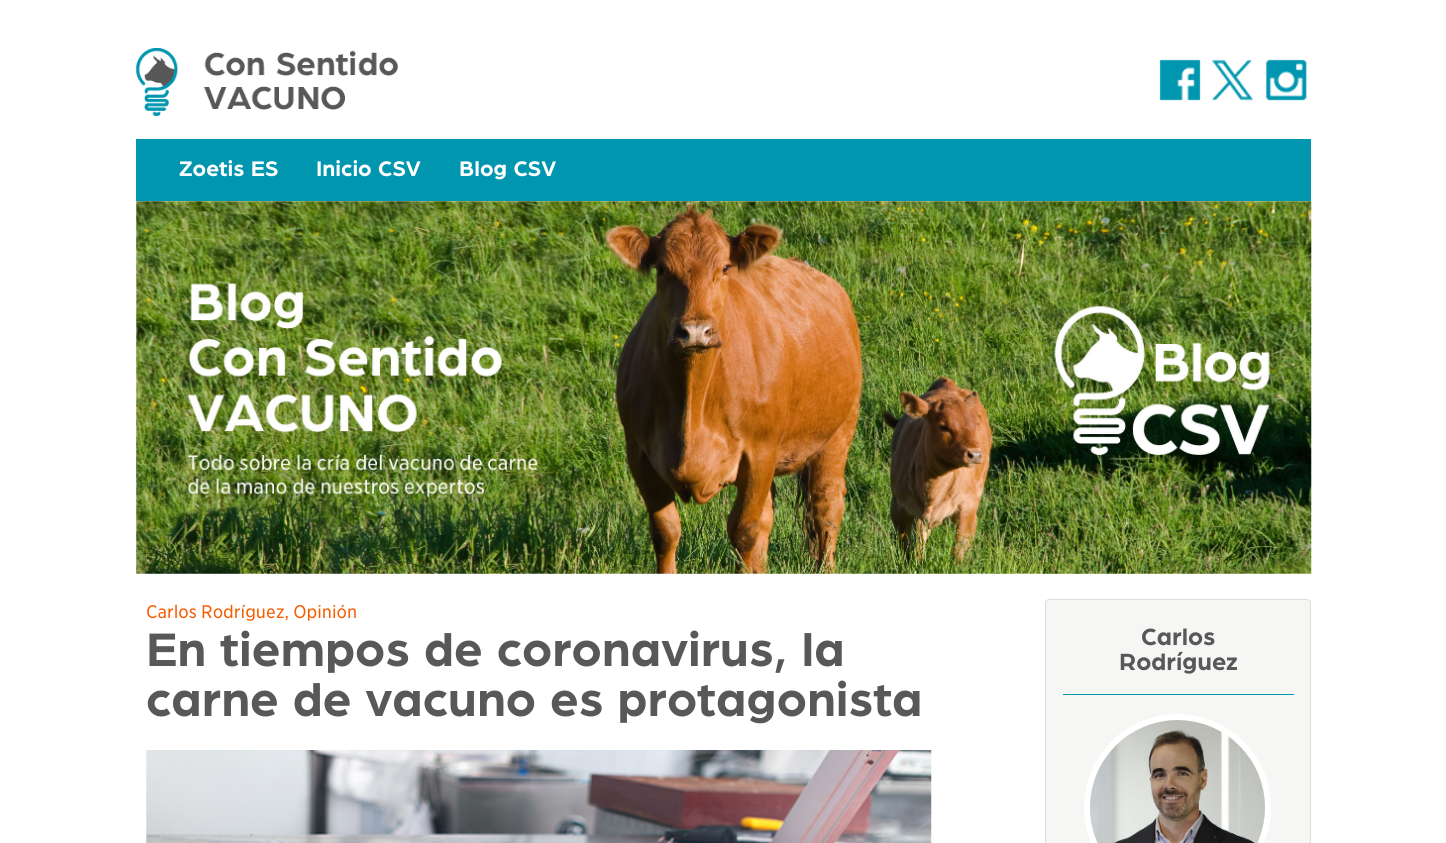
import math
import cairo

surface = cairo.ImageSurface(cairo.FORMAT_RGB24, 1446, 843)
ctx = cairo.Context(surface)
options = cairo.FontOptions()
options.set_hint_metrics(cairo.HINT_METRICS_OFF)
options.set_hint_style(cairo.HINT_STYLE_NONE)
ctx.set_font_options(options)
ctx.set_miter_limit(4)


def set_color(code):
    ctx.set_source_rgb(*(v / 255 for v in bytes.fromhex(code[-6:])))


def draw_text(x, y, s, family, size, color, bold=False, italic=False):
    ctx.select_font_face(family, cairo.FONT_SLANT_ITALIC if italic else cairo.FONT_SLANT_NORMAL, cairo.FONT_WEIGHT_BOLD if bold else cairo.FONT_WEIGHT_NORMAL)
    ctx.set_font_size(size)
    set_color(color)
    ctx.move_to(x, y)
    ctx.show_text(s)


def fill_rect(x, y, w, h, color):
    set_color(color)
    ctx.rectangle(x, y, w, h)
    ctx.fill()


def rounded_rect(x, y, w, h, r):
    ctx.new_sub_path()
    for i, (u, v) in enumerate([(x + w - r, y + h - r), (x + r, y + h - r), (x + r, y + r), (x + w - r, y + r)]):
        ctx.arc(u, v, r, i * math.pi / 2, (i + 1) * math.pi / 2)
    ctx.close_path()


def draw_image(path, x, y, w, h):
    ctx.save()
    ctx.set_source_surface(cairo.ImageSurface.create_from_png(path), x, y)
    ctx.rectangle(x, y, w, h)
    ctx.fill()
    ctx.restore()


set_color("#ffffff")
ctx.paint()
draw_image("assets/img1.png", 136, 48, 262, 68)
draw_image("assets/img2.png", 1159, 59, 42, 42)
draw_image("assets/img3.png", 1212, 59, 41, 42)
draw_image("assets/img4.png", 1266, 59, 41, 42)
fill_rect(136, 139, 1175, 62, "#0096af")
draw_text(179, 176, "Zoetis ES", "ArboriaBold", 22.5, "#ffffff", bold=True)
draw_text(316, 176, "Inicio CSV", "ArboriaBold", 22.5, "#ffffff", bold=True)
draw_text(459, 176, "Blog CSV", "ArboriaBold", 22.5, "#ffffff", bold=True)
draw_image("assets/img5.png", 136, 201, 1176, 373)
draw_text(146, 618, "Carlos Rodríguez, Opinión", "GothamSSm", 17.5, "#f65c00")
draw_text(146, 666, "En tiempos de coronavirus, la", "ArboriaBold", 50, "#585858", bold=True)
draw_text(146, 716, "carne de vacuno es protagonista", "ArboriaBold", 50, "#585858", bold=True)
draw_image("assets/img6.png", 146, 750, 786, 93)
set_color("#f6f6f4")
rounded_rect(1045.5, 599.5, 265, 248, 3.5)
ctx.fill_preserve()
set_color("#dedede")
ctx.set_line_width(1)
ctx.stroke()
fill_rect(1063, 694, 231, 1, "#0096af")
draw_text(1141, 645, "Carlos", "ArboriaBold", 25, "#585858", bold=True)
draw_text(1119, 670, "Rodríguez", "ArboriaBold", 25, "#585858", bold=True)
ctx.new_path()
ctx.arc(1177.5, 807.5, 90.5, 0, 2 * math.pi)
set_color("#ffffff")
ctx.set_line_width(6)
ctx.stroke()
draw_image("assets/img7.png", 1090, 720, 175, 123)
surface.write_to_png("output.png")
